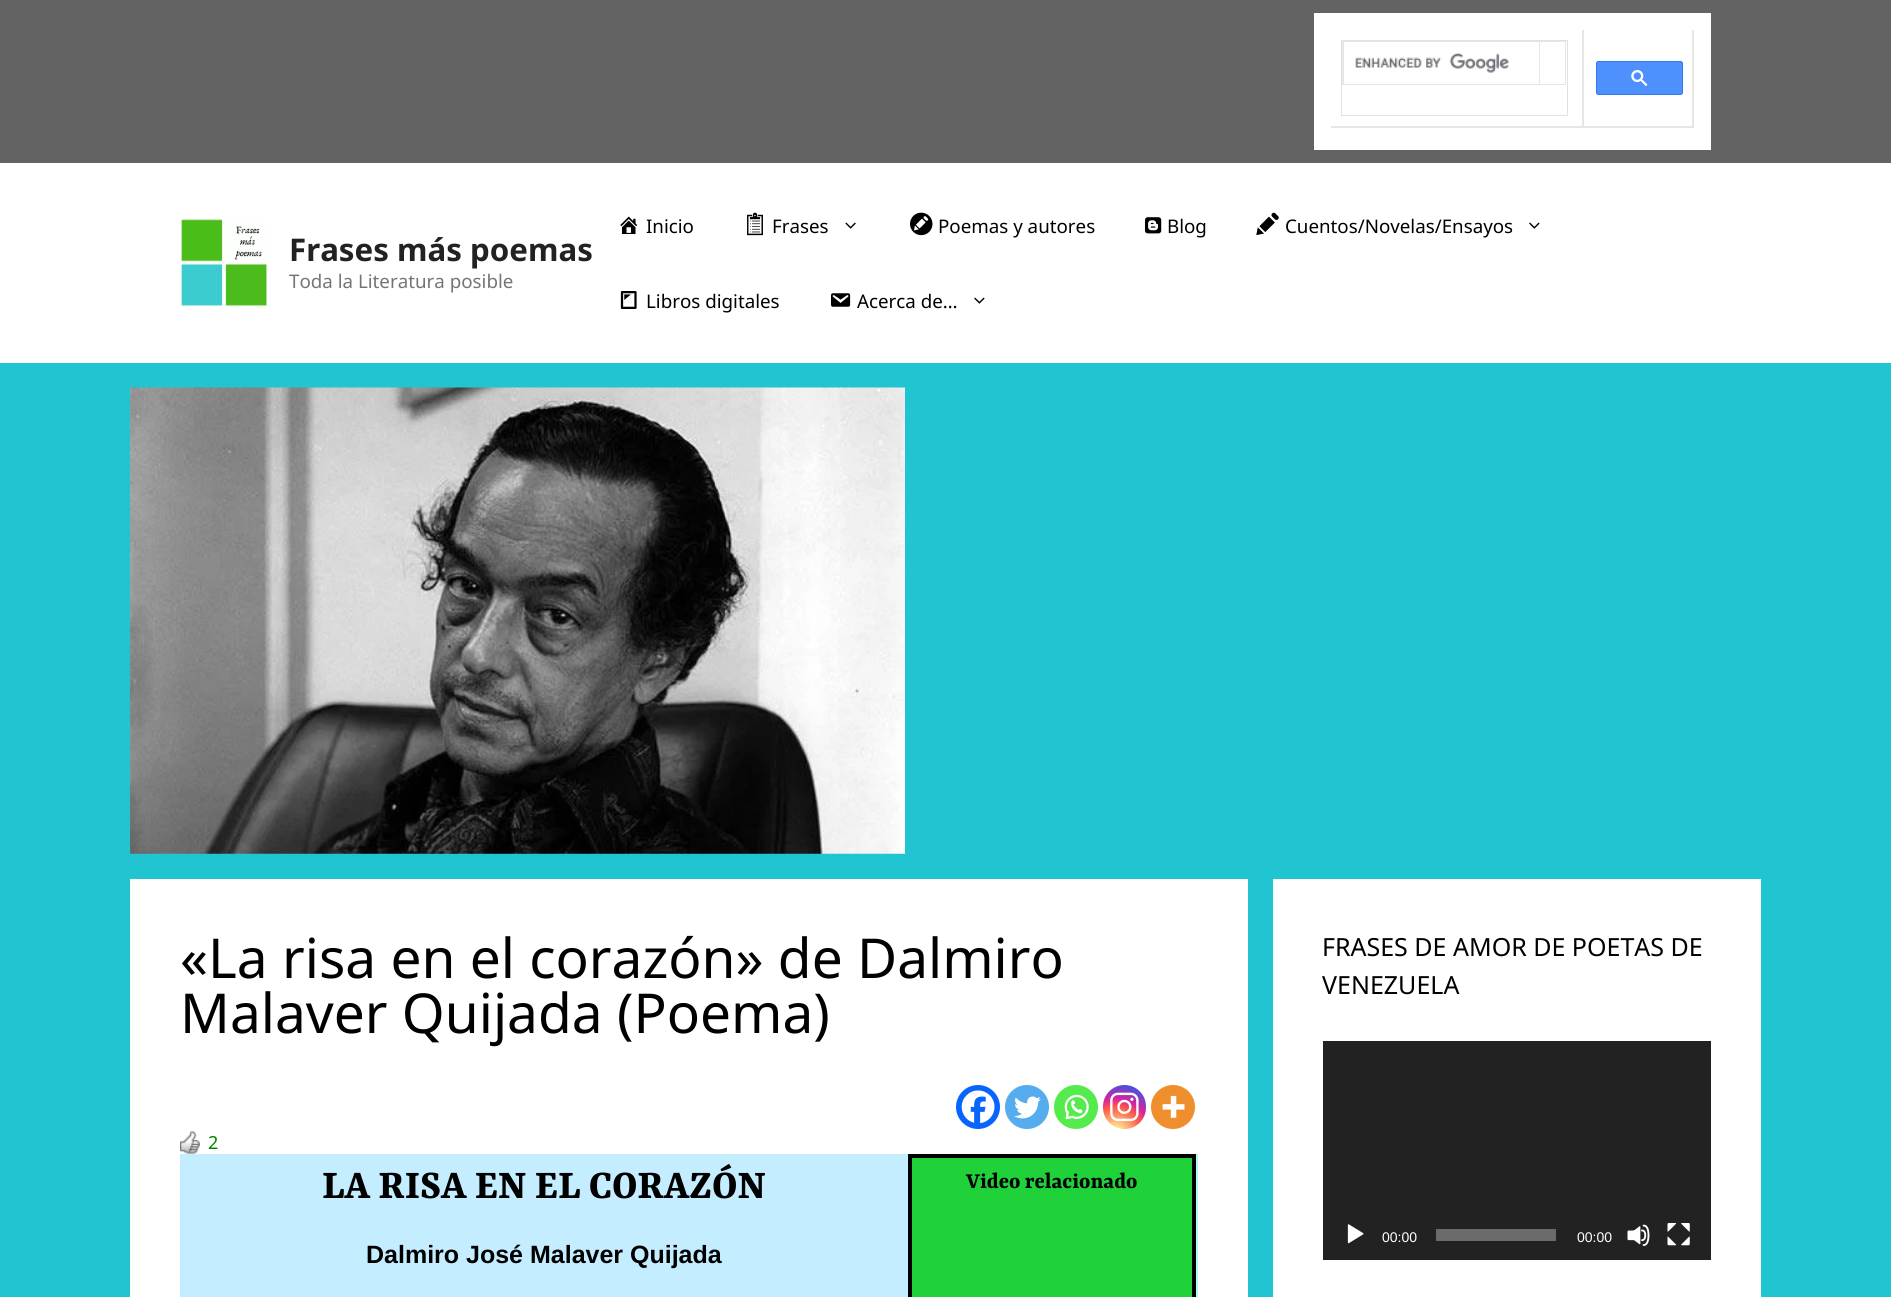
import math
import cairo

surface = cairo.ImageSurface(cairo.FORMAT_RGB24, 1891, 1297)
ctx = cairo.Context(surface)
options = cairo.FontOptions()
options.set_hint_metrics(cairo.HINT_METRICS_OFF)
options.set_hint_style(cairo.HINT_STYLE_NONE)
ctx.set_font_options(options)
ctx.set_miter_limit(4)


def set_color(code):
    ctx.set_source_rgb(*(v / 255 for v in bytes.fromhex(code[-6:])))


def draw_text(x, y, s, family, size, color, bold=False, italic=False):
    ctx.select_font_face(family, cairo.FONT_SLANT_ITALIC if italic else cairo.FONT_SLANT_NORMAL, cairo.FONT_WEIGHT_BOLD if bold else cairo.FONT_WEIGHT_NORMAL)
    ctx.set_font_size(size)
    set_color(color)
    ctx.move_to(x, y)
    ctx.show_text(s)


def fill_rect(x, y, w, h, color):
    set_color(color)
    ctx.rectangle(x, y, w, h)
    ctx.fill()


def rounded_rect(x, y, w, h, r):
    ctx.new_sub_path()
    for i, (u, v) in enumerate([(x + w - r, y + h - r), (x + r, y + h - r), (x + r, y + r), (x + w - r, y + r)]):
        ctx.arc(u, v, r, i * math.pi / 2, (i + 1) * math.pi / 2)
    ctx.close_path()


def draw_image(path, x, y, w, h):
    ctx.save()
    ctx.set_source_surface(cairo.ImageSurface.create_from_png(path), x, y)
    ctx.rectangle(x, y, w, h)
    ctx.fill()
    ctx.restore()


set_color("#21c5d1")
ctx.paint()
fill_rect(0, 0, 1891, 163, "#636363")
fill_rect(1314, 13, 397, 137, "#ffffff")
set_color("#e6e6e6")
ctx.new_path()
ctx.move_to(1584, 30)
ctx.line_to(1584, 128)
ctx.line_to(1582, 126)
ctx.line_to(1582, 30)
ctx.close_path()
ctx.fill()
ctx.set_source_rgba(0, 0, 0, 0.1)
ctx.new_path()
ctx.move_to(1584, 128)
ctx.line_to(1331, 128)
ctx.line_to(1331, 126)
ctx.line_to(1582, 126)
ctx.close_path()
ctx.fill()
ctx.rectangle(1341.5, 40.5, 226, 75)
set_color("#dfe1e5")
ctx.set_line_width(1)
ctx.stroke()
set_color("#e6e6e6")
ctx.new_path()
ctx.move_to(1342, 41)
ctx.line_to(1566, 41)
ctx.line_to(1566, 42)
ctx.line_to(1344, 42)
ctx.close_path()
ctx.fill()
ctx.set_source_rgba(0, 0, 0, 0.1)
ctx.new_path()
ctx.move_to(1342, 85)
ctx.line_to(1342, 41)
ctx.line_to(1344, 42)
ctx.line_to(1344, 85)
ctx.close_path()
ctx.fill()
set_color("#e6e6e6")
ctx.new_path()
ctx.move_to(1540, 42)
ctx.line_to(1540, 85)
ctx.line_to(1539, 84)
ctx.line_to(1539, 42)
ctx.close_path()
ctx.fill()
ctx.set_source_rgba(0, 0, 0, 0.1)
ctx.new_path()
ctx.move_to(1540, 85)
ctx.line_to(1344, 85)
ctx.line_to(1344, 84)
ctx.line_to(1539, 84)
ctx.close_path()
ctx.fill()
draw_image("assets/img1.png", 1355, 53, 154, 20)
set_color("#e6e6e6")
ctx.new_path()
ctx.move_to(1566, 42)
ctx.line_to(1566, 85)
ctx.line_to(1565, 84)
ctx.line_to(1565, 42)
ctx.close_path()
ctx.fill()
ctx.set_source_rgba(0, 0, 0, 0.1)
ctx.new_path()
ctx.move_to(1566, 85)
ctx.line_to(1540, 85)
ctx.line_to(1540, 84)
ctx.line_to(1565, 84)
ctx.close_path()
ctx.fill()
set_color("#e6e6e6")
ctx.new_path()
ctx.move_to(1694, 30)
ctx.line_to(1694, 128)
ctx.line_to(1692, 126)
ctx.line_to(1692, 30)
ctx.close_path()
ctx.fill()
ctx.set_source_rgba(0, 0, 0, 0.1)
ctx.new_path()
ctx.move_to(1694, 128)
ctx.line_to(1584, 128)
ctx.line_to(1584, 126)
ctx.line_to(1692, 126)
ctx.close_path()
ctx.fill()
set_color("#4d90fe")
rounded_rect(1596.5, 61.5, 86, 33, 2)
ctx.fill_preserve()
set_color("#3079ed")
ctx.stroke()
draw_image("assets/img2.png", 1631, 70, 17, 16)
fill_rect(0, 163, 1891, 200, "#ffffff")
draw_image("assets/img3.png", 181, 219, 86, 87)
draw_text(289, 261, "Frases más poemas", "Noto Sans", 31.25, "#222222", bold=True)
draw_text(289, 288, "Toda la Literatura posible", "Noto Sans", 18.75, "#757575")
draw_image("assets/img4.png", 620, 216, 18, 18)
draw_text(646, 233, "Inicio", "Noto Sans", 18.75, "#000000")
draw_image("assets/img5.png", 747, 212, 16, 24)
draw_text(772, 233, "Frases", "Noto Sans", 18.75, "#000000")
draw_image("assets/img6.png", 845, 222, 11, 7)
draw_image("assets/img7.png", 910, 212, 23, 24)
draw_text(938, 233, "Poemas y autores", "Noto Sans", 18.75, "#000000")
draw_image("assets/img8.png", 1145, 217, 17, 17)
draw_text(1167, 233, "Blog", "Noto Sans", 18.75, "#000000")
draw_image("assets/img9.png", 1256, 212, 23, 24)
draw_text(1285, 233, "Cuentos/Novelas/Ensayos", "Noto Sans", 18.75, "#000000")
draw_image("assets/img10.png", 1529, 222, 11, 7)
draw_image("assets/img11.png", 620, 291, 17, 18)
draw_text(646, 308, "Libros digitales", "Noto Sans", 18.75, "#000000")
draw_image("assets/img12.png", 831, 293, 20, 14)
draw_text(857, 308, "Acerca de…", "Noto Sans", 18.75, "#000000")
draw_image("assets/img10.png", 974, 297, 11, 7)
draw_image("assets/img13.png", 130, 387, 775, 467)
fill_rect(130, 879, 1118, 418, "#ffffff")
draw_text(180, 978, "«La risa en el corazón» de Dalmiro", "Noto Sans", 55, "#000000")
draw_text(180, 1033, "Malaver Quijada (Poema)", "Noto Sans", 55, "#000000")
set_color("#0765fe")
ctx.new_path()
ctx.arc(978, 1107, 22, 0, 2 * math.pi)
ctx.fill()
draw_image("assets/img14.png", 961, 1090, 34, 34)
set_color("#55acee")
ctx.arc(1027, 1107, 22, 0, 2 * math.pi)
ctx.fill()
draw_image("assets/img15.png", 1014, 1096, 27, 23)
set_color("#55eb4c")
ctx.arc(1076, 1107, 22, 0, 2 * math.pi)
ctx.fill()
draw_image("assets/img16.png", 1064, 1094, 25, 26)
gradient = cairo.RadialGradient(1116, 1132, 0, 1116, 1132, 56)
gradient.add_color_stop_rgba(0, 0.992, 0.957, 0.592, 1)
gradient.add_color_stop_rgba(0.05, 0.992, 0.957, 0.592, 1)
gradient.add_color_stop_rgba(0.45, 0.992, 0.349, 0.286, 1)
gradient.add_color_stop_rgba(0.6, 0.839, 0.141, 0.624, 1)
gradient.add_color_stop_rgba(0.9, 0.157, 0.353, 0.922, 1)
ctx.set_source(gradient)
rounded_rect(1103, 1085, 43, 44, 21.5)
ctx.fill()
draw_image("assets/img17.png", 1110, 1092, 29, 30)
set_color("#ee8e2d")
ctx.arc(1173, 1107, 22, 0, 2 * math.pi)
ctx.fill()
draw_image("assets/img18.png", 1162, 1095, 23, 23)
draw_image("assets/img19.png", 180, 1131, 20, 23)
draw_text(208, 1149, "2", "Noto Sans", 18, "#008000")
fill_rect(180, 1154, 728, 143, "#c4eeff")
draw_text(322, 1198, "LA RISA EN EL CORAZÓN", "Rasa", 43.75, "#000000", bold=True)
draw_text(366, 1263, "Dalmiro José Malaver Quijada", "Liberation Sans", 25, "#000000", bold=True)
set_color("#20d23a")
ctx.rectangle(910, 1156, 284, 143)
ctx.fill_preserve()
set_color("#000000")
ctx.set_line_width(4)
ctx.stroke()
draw_text(966, 1188, "Video relacionado", "Rasa", 23.75, "#000000", bold=True)
fill_rect(1196, 1154, 2, 143, "#b0f6f2")
fill_rect(1273, 879, 488, 418, "#ffffff")
draw_text(1322, 956, "FRASES DE AMOR DE POETAS DE", "Noto Sans", 25, "#000000")
draw_text(1322, 994, "VENEZUELA", "Noto Sans", 25, "#000000")
fill_rect(1323, 1041, 388, 219, "#222222")
draw_image("assets/img20.png", 1347, 1224, 17, 20)
draw_text(1382, 1242, "00:00", "Liberation Sans", 14, "#ffffff")
fill_rect(1436, 1229, 120, 12, "#6b6b6b")
draw_text(1577, 1242, "00:00", "Liberation Sans", 14, "#ffffff")
draw_image("assets/img21.png", 1627, 1224, 23, 22)
draw_image("assets/img22.png", 1667, 1223, 23, 23)
surface.write_to_png("output.png")
